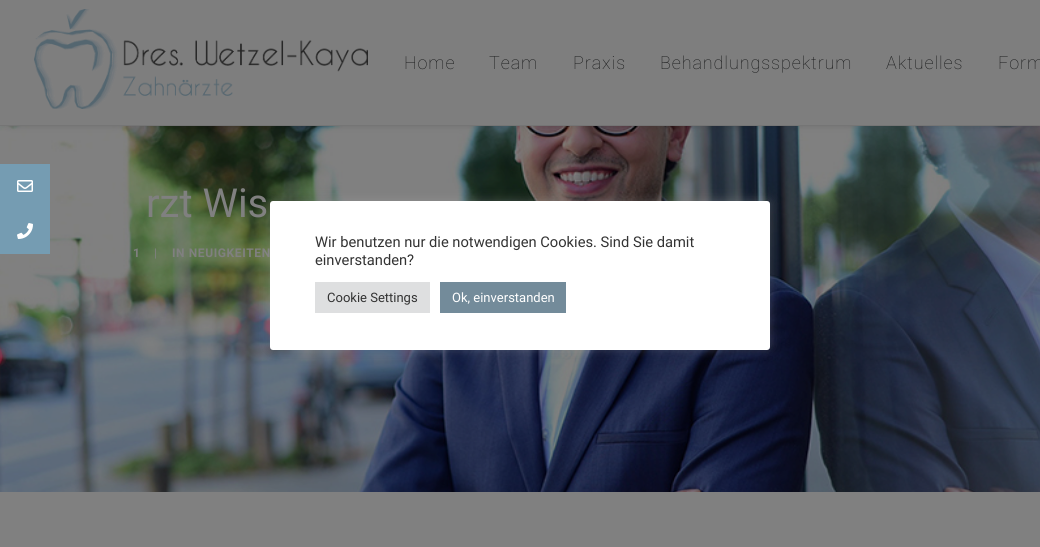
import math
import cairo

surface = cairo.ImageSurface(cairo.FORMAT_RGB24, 1040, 547)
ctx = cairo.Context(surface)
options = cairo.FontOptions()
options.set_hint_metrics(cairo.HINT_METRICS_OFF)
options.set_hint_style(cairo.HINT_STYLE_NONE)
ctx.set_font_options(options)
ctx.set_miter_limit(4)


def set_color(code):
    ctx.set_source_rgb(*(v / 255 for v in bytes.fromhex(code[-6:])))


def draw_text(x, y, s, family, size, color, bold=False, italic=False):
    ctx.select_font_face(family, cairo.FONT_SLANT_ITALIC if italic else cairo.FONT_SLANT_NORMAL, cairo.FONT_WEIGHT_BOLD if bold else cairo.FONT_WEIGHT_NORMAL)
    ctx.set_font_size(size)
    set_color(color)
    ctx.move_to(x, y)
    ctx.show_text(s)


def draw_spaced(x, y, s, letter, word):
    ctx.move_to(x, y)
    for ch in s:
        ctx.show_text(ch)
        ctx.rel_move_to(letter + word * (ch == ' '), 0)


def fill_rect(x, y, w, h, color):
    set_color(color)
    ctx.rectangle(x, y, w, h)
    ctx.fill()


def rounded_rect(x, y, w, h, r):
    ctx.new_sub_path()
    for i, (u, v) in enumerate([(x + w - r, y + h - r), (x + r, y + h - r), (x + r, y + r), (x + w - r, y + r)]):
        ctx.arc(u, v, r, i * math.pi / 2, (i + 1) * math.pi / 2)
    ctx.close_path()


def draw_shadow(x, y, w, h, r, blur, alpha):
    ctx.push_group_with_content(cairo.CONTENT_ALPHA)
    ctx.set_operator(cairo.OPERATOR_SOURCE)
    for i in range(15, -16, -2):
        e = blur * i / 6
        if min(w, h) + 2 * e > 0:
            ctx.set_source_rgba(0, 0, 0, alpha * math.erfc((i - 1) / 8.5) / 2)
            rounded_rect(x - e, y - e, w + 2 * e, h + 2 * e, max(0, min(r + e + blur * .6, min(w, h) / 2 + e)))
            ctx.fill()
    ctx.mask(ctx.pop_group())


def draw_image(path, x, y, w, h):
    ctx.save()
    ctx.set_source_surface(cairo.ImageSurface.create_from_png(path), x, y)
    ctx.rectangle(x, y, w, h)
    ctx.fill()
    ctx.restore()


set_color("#ffffff")
ctx.paint()
draw_image("assets/img4.png", 0, 126, 1040, 366)
fill_rect(0, 164, 50, 90, "#759cb2")
draw_image("assets/img1.png", 17, 180, 16, 12)
draw_image("assets/img2.png", 17, 223, 16, 16)
set_color("#000000")
draw_shadow(8, 14, 1024, 106, 0, 5, 0.6)
fill_rect(0, 0, 1040, 125, "#7e7e7e")
fill_rect(0, 125, 1040, 1, "#757575")
draw_image("assets/img3.png", 34, 9, 334, 100)
ctx.select_font_face("Roboto Thin")
ctx.set_font_size(18)
set_color("#18191a")
draw_spaced(404, 69, "Home", 0.9, 0)
draw_spaced(489, 69, "Team", 0.9, 0)
draw_spaced(573, 69, "Praxis", 0.9, 0)
draw_spaced(660, 69, "Behandlungsspektrum", 0.9, 0)
draw_spaced(886, 69, "Aktuelles", 0.9, 0)
draw_spaced(998, 69, "Form", 0.9, 0)
draw_text(146, 217, "rzt Wis", "Roboto", 40, "#808080")
ctx.select_font_face("Roboto", cairo.FONT_SLANT_NORMAL, cairo.FONT_WEIGHT_BOLD)
ctx.set_font_size(12)
draw_spaced(133, 257, "1", 0.6, 0)
ctx.select_font_face("Roboto")
draw_spaced(154, 257, "|", 0.6, 0)
ctx.select_font_face("Roboto", cairo.FONT_SLANT_NORMAL, cairo.FONT_WEIGHT_BOLD)
draw_spaced(172, 257, "IN NEUIGKEITEN", 0.6, 0)
fill_rect(0, 492, 1040, 55, "#808080")
set_color("#acabab")
draw_shadow(270, 200, 500, 149, 3, 5, 0.3)
set_color("#ffffff")
rounded_rect(270, 201, 500, 149, 3)
ctx.fill()
draw_text(315, 247, "Wir benutzen nur die notwendigen Cookies. Sind Sie damit", "Roboto", 14.7, "#333333")
draw_text(315, 265, "einverstanden?", "Roboto", 14.7, "#333333")
fill_rect(315, 282, 115, 31, "#dedfe0")
draw_text(327, 302, "Cookie Settings", "Roboto", 13, "#333333")
fill_rect(440, 282, 126, 31, "#738b9a")
draw_text(452, 302, "Ok, einverstanden", "Roboto", 13, "#ffffff")
surface.write_to_png("output.png")
